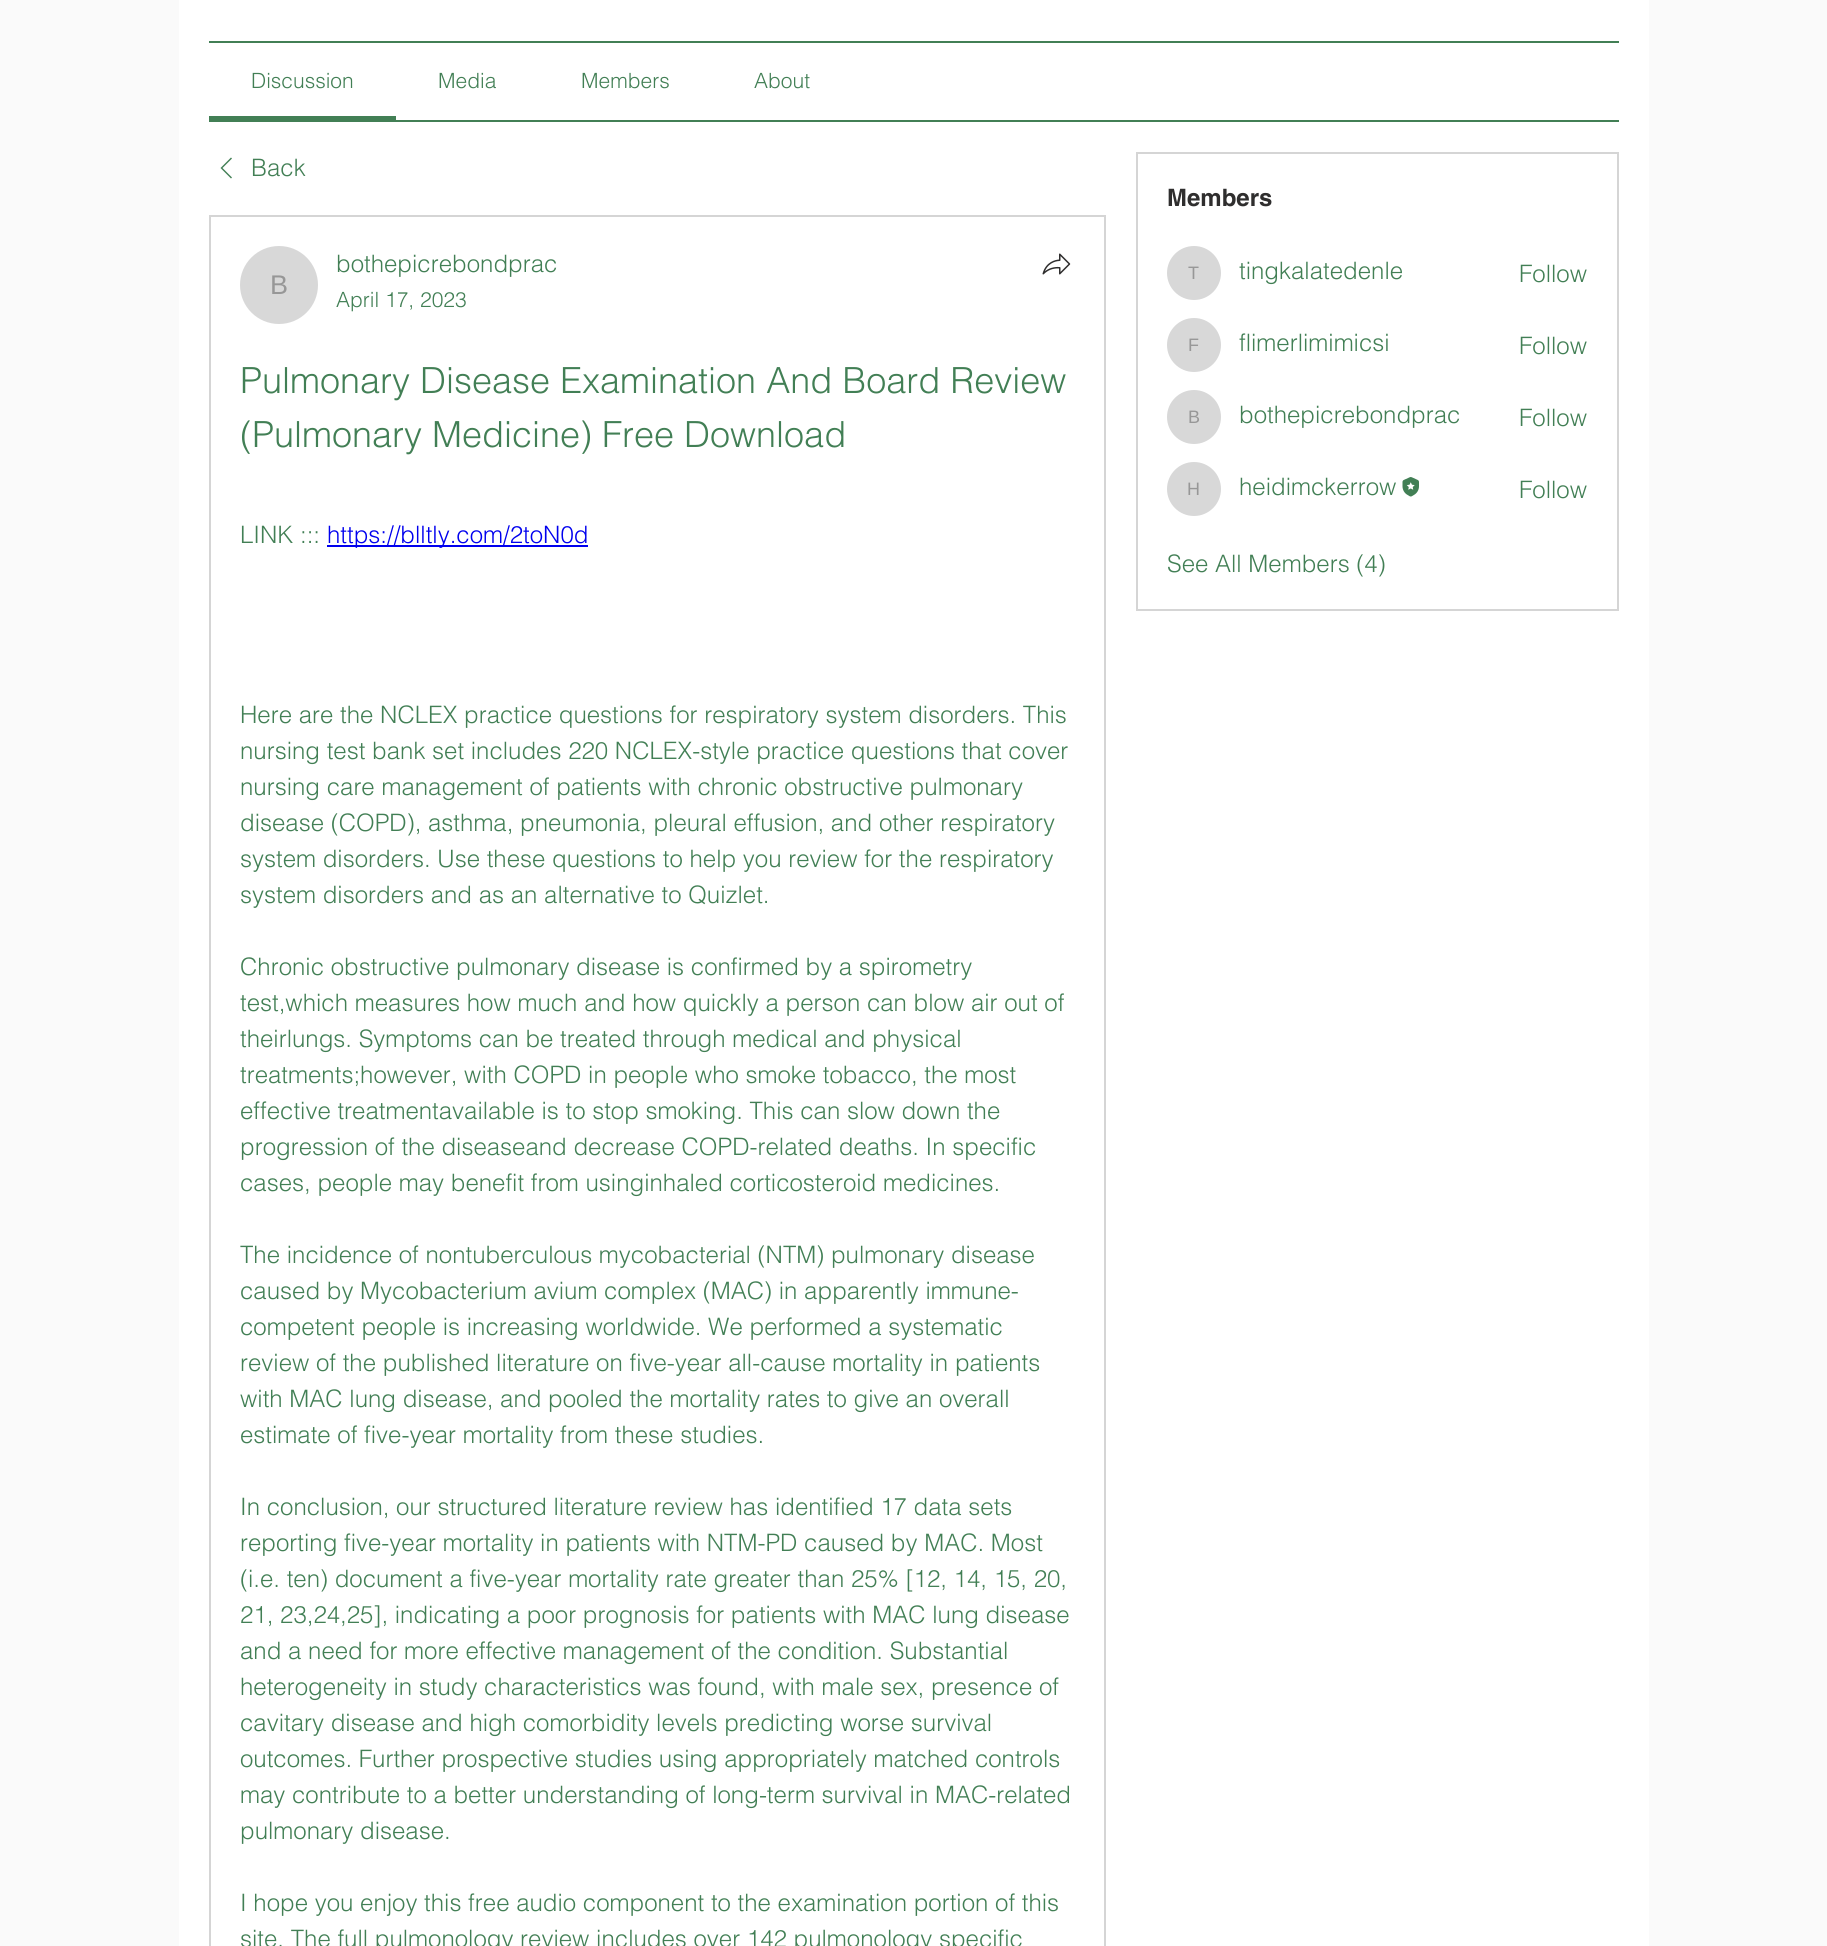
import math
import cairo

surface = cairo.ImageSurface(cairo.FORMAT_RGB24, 1827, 1946)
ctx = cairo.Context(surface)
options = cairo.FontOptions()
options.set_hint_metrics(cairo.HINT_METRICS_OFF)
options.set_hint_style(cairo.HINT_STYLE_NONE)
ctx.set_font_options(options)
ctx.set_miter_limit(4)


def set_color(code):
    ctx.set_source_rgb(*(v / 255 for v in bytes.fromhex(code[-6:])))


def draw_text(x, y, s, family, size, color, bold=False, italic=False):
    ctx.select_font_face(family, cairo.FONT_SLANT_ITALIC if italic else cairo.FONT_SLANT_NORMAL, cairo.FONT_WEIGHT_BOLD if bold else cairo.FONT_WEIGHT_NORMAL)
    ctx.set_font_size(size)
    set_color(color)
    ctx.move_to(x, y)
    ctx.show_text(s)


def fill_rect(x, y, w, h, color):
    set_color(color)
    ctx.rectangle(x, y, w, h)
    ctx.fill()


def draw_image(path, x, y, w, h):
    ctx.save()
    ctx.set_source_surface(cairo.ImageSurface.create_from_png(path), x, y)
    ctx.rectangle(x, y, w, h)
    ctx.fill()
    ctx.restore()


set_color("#fafafa")
ctx.paint()
fill_rect(179, 0, 1470, 1946, "#ffffff")
fill_rect(209, 41, 1410, 2, "#427f55")
fill_rect(209, 120, 1410, 2, "#427f55")
fill_rect(209, 116, 187, 4, "#427f55")
draw_text(251, 88, "Discussion", "helvetica Light", 21, "#427f55")
draw_text(438, 88, "Media", "helvetica Light", 21, "#427f55")
draw_text(581, 88, "Members", "helvetica Light", 21, "#427f55")
draw_text(754, 88, "About", "helvetica Light", 21, "#427f55")
ctx.set_fill_rule(cairo.FILL_RULE_EVEN_ODD)
ctx.new_path()
ctx.move_to(231, 157.5)
ctx.line_to(232, 158.5)
ctx.line_to(222.5, 168)
ctx.line_to(232, 177.5)
ctx.line_to(231, 178.5)
ctx.line_to(220.5, 168)
ctx.close_path()
ctx.fill()
draw_text(251, 176, "Back", "helvetica Light", 24, "#427f55")
ctx.rectangle(210, 216, 895, 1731)
set_color("#d5d5d5")
ctx.stroke()
set_color("#d8d8d8")
ctx.arc(279, 285, 39, 0, 2 * math.pi)
ctx.fill()
draw_text(270, 294, "B", "Liberation Sans", 27, "#979797")
draw_text(336, 272, "bothepicrebondprac", "helvetica Light", 24, "#427f55")
draw_text(336, 307, "April 17, 2023", "helvetica Light", 21, "#427f55")
draw_image("assets/img1.png", 1042, 253, 29, 22)
draw_text(240, 393, "Pulmonary Disease Examination And Board Review", "helvetica Light", 36, "#427f55")
draw_text(240, 447, "(Pulmonary Medicine) Free Download", "helvetica Light", 36, "#427f55")
draw_text(240, 543, "LINK :::", "helvetica Light", 24, "#427f55")
fill_rect(327, 545, 261, 2, "#0000ee")
draw_text(327, 543, "https://blltly.com/2toN0d", "helvetica Light", 24, "#0000ee")
draw_text(240, 723, "Here are the NCLEX practice questions for respiratory system disorders. This", "helvetica Light", 24, "#427f55")
draw_text(240, 759, "nursing test bank set includes 220 NCLEX-style practice questions that cover", "helvetica Light", 24, "#427f55")
draw_text(240, 795, "nursing care management of patients with chronic obstructive pulmonary", "helvetica Light", 24, "#427f55")
draw_text(240, 831, "disease (COPD), asthma, pneumonia, pleural effusion, and other respiratory", "helvetica Light", 24, "#427f55")
draw_text(240, 867, "system disorders. Use these questions to help you review for the respiratory", "helvetica Light", 24, "#427f55")
draw_text(240, 903, "system disorders and as an alternative to Quizlet.", "helvetica Light", 24, "#427f55")
draw_text(240, 975, "Chronic obstructive pulmonary disease is confirmed by a spirometry", "helvetica Light", 24, "#427f55")
draw_text(240, 1011, "test,which measures how much and how quickly a person can blow air out of", "helvetica Light", 24, "#427f55")
draw_text(240, 1047, "theirlungs. Symptoms can be treated through medical and physical", "helvetica Light", 24, "#427f55")
draw_text(240, 1083, "treatments;however, with COPD in people who smoke tobacco, the most", "helvetica Light", 24, "#427f55")
draw_text(240, 1119, "effective treatmentavailable is to stop smoking. This can slow down the", "helvetica Light", 24, "#427f55")
draw_text(240, 1155, "progression of the diseaseand decrease COPD-related deaths. In specific", "helvetica Light", 24, "#427f55")
draw_text(240, 1191, "cases, people may benefit from usinginhaled corticosteroid medicines.", "helvetica Light", 24, "#427f55")
draw_text(240, 1263, "The incidence of nontuberculous mycobacterial (NTM) pulmonary disease", "helvetica Light", 24, "#427f55")
draw_text(240, 1299, "caused by Mycobacterium avium complex (MAC) in apparently immune-", "helvetica Light", 24, "#427f55")
draw_text(240, 1335, "competent people is increasing worldwide. We performed a systematic", "helvetica Light", 24, "#427f55")
draw_text(240, 1371, "review of the published literature on five-year all-cause mortality in patients", "helvetica Light", 24, "#427f55")
draw_text(240, 1407, "with MAC lung disease, and pooled the mortality rates to give an overall", "helvetica Light", 24, "#427f55")
draw_text(240, 1443, "estimate of five-year mortality from these studies.", "helvetica Light", 24, "#427f55")
draw_text(240, 1515, "In conclusion, our structured literature review has identified 17 data sets", "helvetica Light", 24, "#427f55")
draw_text(240, 1551, "reporting five-year mortality in patients with NTM-PD caused by MAC. Most", "helvetica Light", 24, "#427f55")
draw_text(240, 1587, "(i.e. ten) document a five-year mortality rate greater than 25% [12, 14, 15, 20,", "helvetica Light", 24, "#427f55")
draw_text(240, 1623, "21, 23,24,25], indicating a poor prognosis for patients with MAC lung disease", "helvetica Light", 24, "#427f55")
draw_text(240, 1659, "and a need for more effective management of the condition. Substantial", "helvetica Light", 24, "#427f55")
draw_text(240, 1695, "heterogeneity in study characteristics was found, with male sex, presence of", "helvetica Light", 24, "#427f55")
draw_text(240, 1731, "cavitary disease and high comorbidity levels predicting worse survival", "helvetica Light", 24, "#427f55")
draw_text(240, 1767, "outcomes. Further prospective studies using appropriately matched controls", "helvetica Light", 24, "#427f55")
draw_text(240, 1803, "may contribute to a better understanding of long-term survival in MAC-related", "helvetica Light", 24, "#427f55")
draw_text(240, 1839, "pulmonary disease.", "helvetica Light", 24, "#427f55")
draw_text(240, 1911, "I hope you enjoy this free audio component to the examination portion of this", "helvetica Light", 24, "#427f55")
draw_text(240, 1947, "site. The full pulmonology review includes over 142 pulmonology specific", "helvetica Light", 24, "#427f55")
ctx.rectangle(1137, 153, 481, 457)
set_color("#d5d5d5")
ctx.stroke()
draw_text(1167, 206, "Members", "helvetica", 24, "#2f2e2e", bold=True)
set_color("#d8d8d8")
ctx.new_path()
ctx.arc(1194, 273, 27, 0, 2 * math.pi)
ctx.fill()
draw_text(1188, 279, "T", "Liberation Sans", 18, "#979797")
draw_text(1239, 279, "tingkalatedenle", "helvetica Light", 24, "#427f55")
draw_text(1519, 282, "Follow", "helvetica Light", 24, "#427f55")
set_color("#d8d8d8")
ctx.new_path()
ctx.arc(1194, 345, 27, 0, 2 * math.pi)
ctx.fill()
draw_text(1188, 351, "F", "Liberation Sans", 18, "#979797")
draw_text(1239, 351, "flimerlimimicsi", "helvetica Light", 24, "#427f55")
draw_text(1519, 354, "Follow", "helvetica Light", 24, "#427f55")
set_color("#d8d8d8")
ctx.new_path()
ctx.arc(1194, 417, 27, 0, 2 * math.pi)
ctx.fill()
draw_text(1188, 423, "B", "Liberation Sans", 18, "#979797")
draw_text(1239, 423, "bothepicrebondprac", "helvetica Light", 24, "#427f55")
draw_text(1519, 426, "Follow", "helvetica Light", 24, "#427f55")
set_color("#d8d8d8")
ctx.new_path()
ctx.arc(1194, 489, 27, 0, 2 * math.pi)
ctx.fill()
draw_text(1187, 495, "H", "Liberation Sans", 18, "#979797")
draw_text(1239, 495, "heidimckerrow", "helvetica Light", 24, "#427f55")
draw_image("assets/img2.png", 1402, 477, 17, 20)
draw_text(1519, 498, "Follow", "helvetica Light", 24, "#427f55")
draw_text(1167, 572, "See All Members (4)", "helvetica Light", 24, "#427f55")
surface.write_to_png("output.png")
